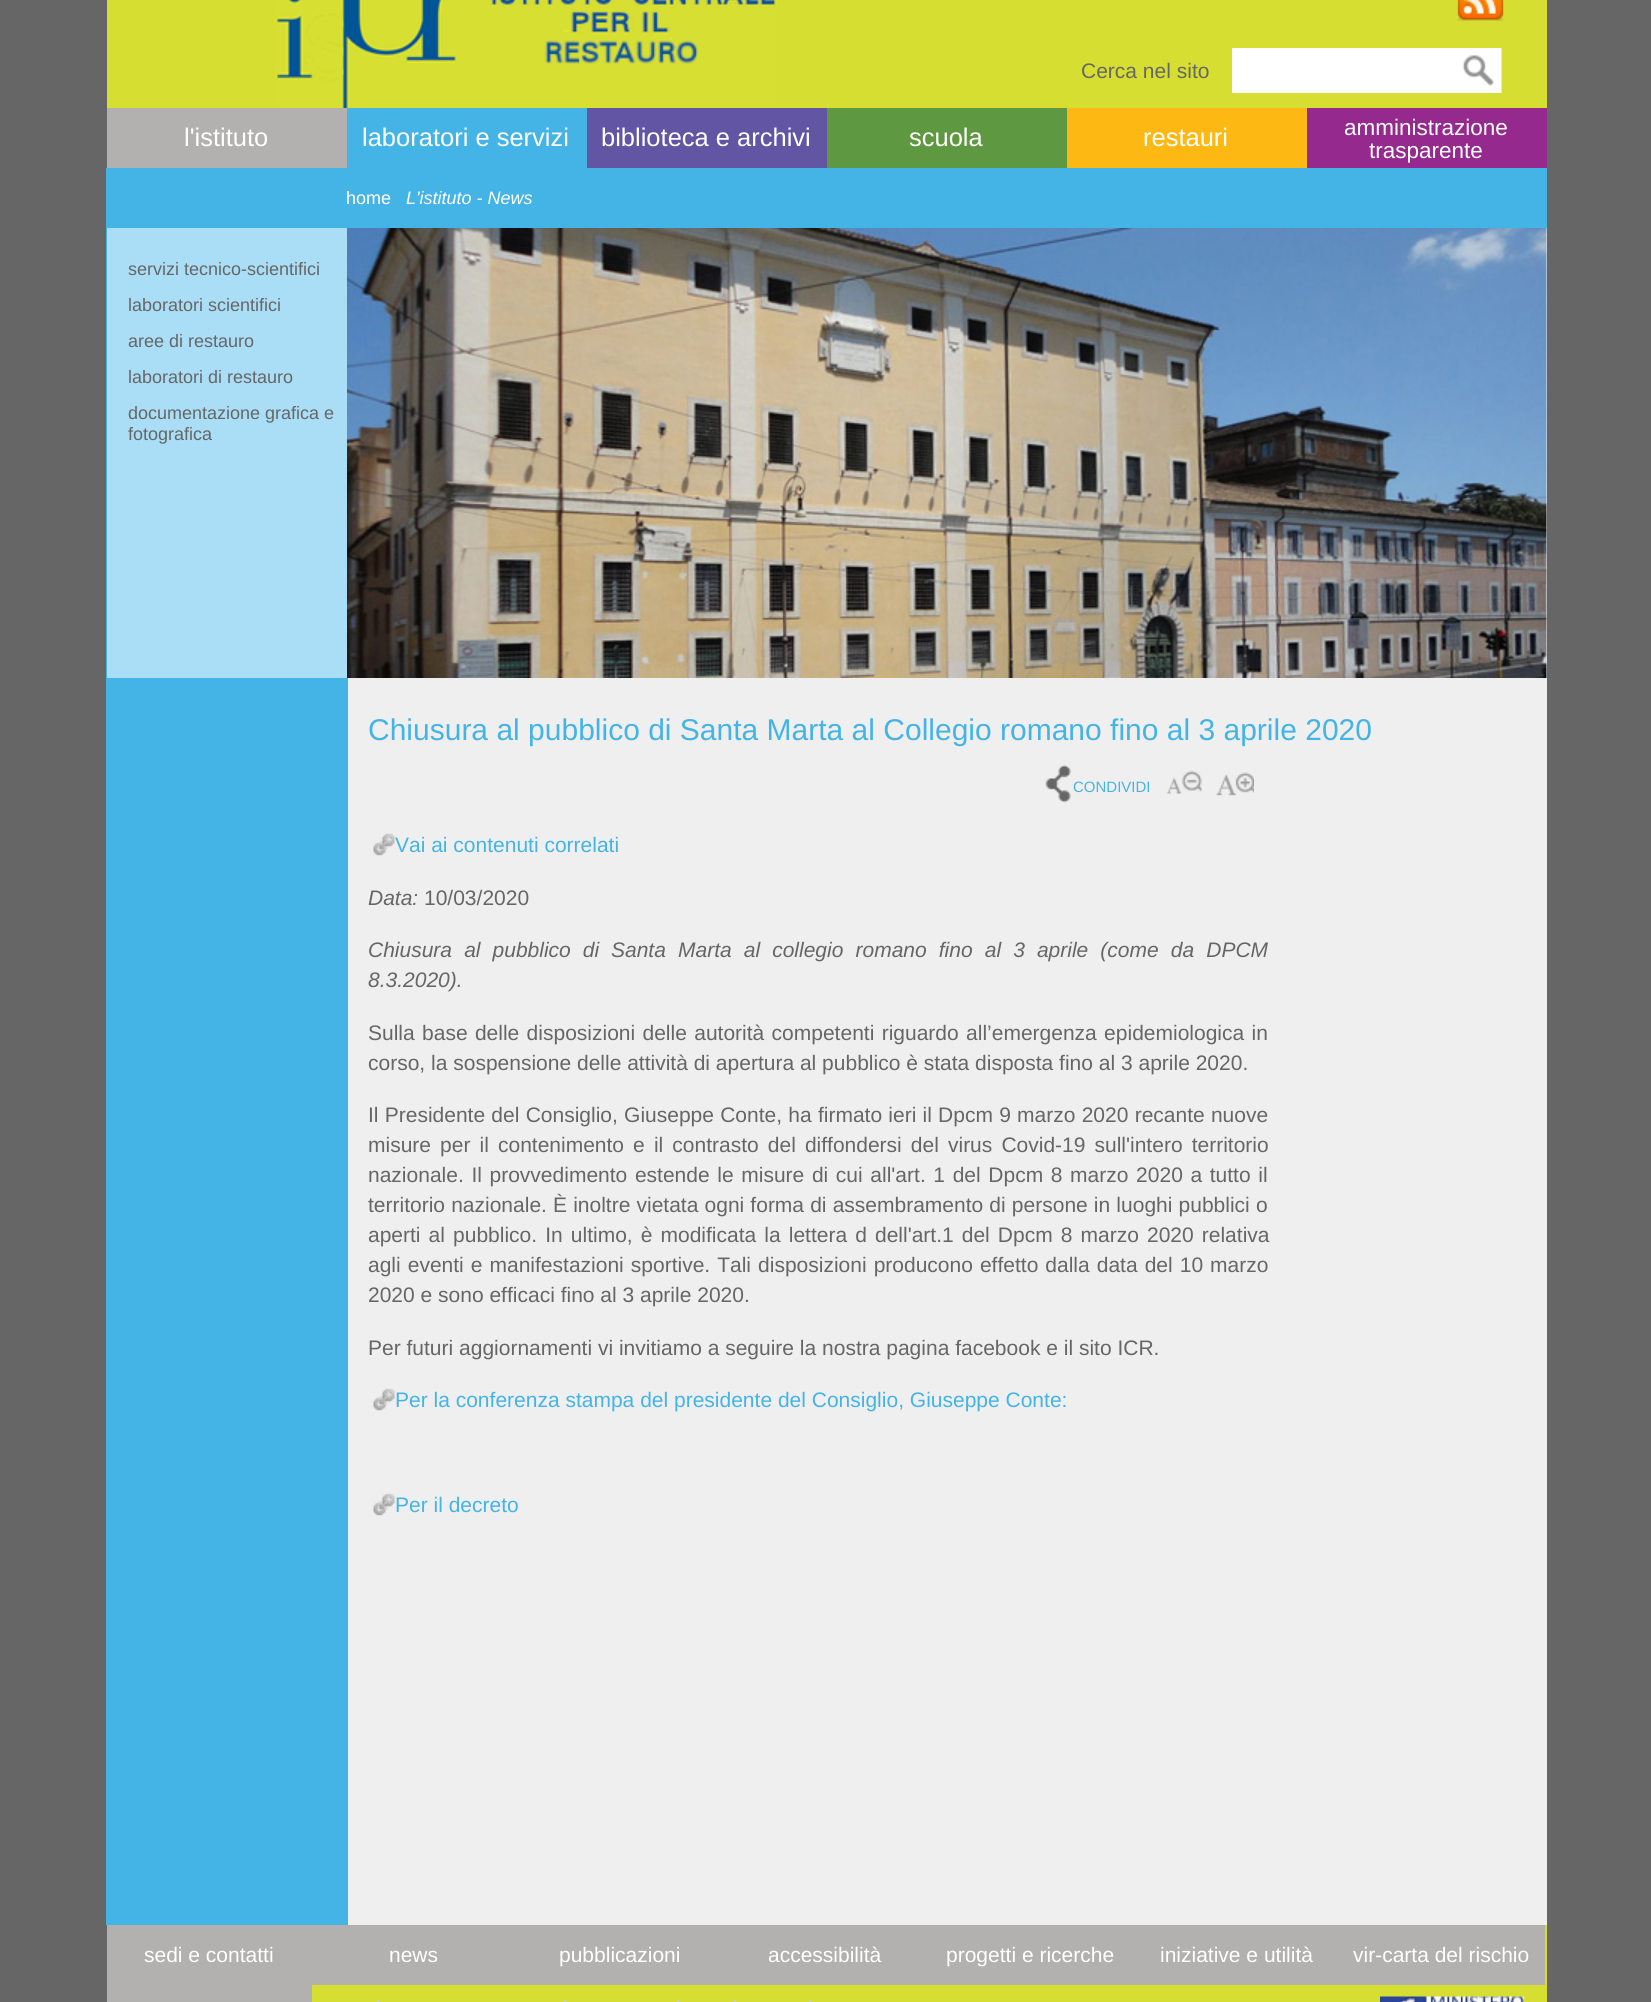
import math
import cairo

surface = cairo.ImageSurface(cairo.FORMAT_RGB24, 1651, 2002)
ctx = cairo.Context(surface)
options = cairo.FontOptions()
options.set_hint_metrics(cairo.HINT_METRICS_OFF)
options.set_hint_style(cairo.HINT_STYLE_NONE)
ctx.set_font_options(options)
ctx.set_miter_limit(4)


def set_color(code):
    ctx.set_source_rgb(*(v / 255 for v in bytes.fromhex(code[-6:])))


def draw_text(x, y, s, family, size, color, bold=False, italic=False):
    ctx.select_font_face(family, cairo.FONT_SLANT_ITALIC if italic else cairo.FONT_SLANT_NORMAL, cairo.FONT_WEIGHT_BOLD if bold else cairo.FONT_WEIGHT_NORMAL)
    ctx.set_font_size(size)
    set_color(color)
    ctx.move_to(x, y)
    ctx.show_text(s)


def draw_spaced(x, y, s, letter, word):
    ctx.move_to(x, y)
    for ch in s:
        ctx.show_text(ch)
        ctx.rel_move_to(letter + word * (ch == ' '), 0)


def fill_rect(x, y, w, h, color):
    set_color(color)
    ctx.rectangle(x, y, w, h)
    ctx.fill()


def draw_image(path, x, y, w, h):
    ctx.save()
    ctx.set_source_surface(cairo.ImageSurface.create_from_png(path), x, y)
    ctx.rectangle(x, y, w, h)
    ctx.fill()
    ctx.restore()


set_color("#666666")
ctx.paint()
fill_rect(107, 0, 1440, 108, "#d6df31")
draw_image("assets/img1.png", 275, 0, 502, 108)
draw_image("assets/img2.png", 1457, 0, 47, 21)
draw_text(1081, 78, "Cerca nel sito", "Liberation Sans", 21, "#666666")
fill_rect(1232, 48, 230, 45, "#ffffff")
draw_image("assets/img3.png", 1462, 48, 40, 45)
fill_rect(107, 108, 240, 60, "#b2b1b0")
draw_text(184, 146, "l'istituto", "Liberation Sans", 25.5, "#ffffff")
fill_rect(347, 108, 240, 60, "#44b4e6")
draw_text(362, 146, "laboratori e servizi", "Liberation Sans", 25.5, "#ffffff")
fill_rect(587, 108, 240, 60, "#6255a3")
draw_text(601, 146, "biblioteca e archivi", "Liberation Sans", 25.5, "#ffffff")
fill_rect(827, 108, 240, 60, "#5e9840")
draw_text(909, 146, "scuola", "Liberation Sans", 25.5, "#ffffff")
fill_rect(1067, 108, 240, 60, "#fdb813")
draw_text(1143, 146, "restauri", "Liberation Sans", 25.5, "#ffffff")
fill_rect(1307, 108, 240, 60, "#96298e")
draw_text(1344, 135, "amministrazione", "Liberation Sans", 22.5, "#ffffff")
draw_text(1369, 158, "trasparente", "Liberation Sans", 22.5, "#ffffff")
fill_rect(348, 228, 1199, 1697, "#efefef")
fill_rect(106, 168, 242, 1757, "#44b4e6")
fill_rect(348, 168, 1199, 60, "#44b4e6")
draw_text(346, 204, "home", "Liberation Sans", 18, "#ffffff")
draw_text(406, 204, "L'istituto - News", "Liberation Sans", 18, "#ffffff", italic=True)
fill_rect(107, 228, 240, 450, "#a9def6")
draw_text(128, 275, "servizi tecnico-scientifici", "Liberation Sans", 18, "#666666")
draw_text(128, 311, "laboratori scientifici", "Liberation Sans", 18, "#666666")
draw_text(128, 347, "aree di restauro", "Liberation Sans", 18, "#666666")
draw_text(128, 383, "laboratori di restauro", "Liberation Sans", 18, "#666666")
draw_text(128, 419, "documentazione grafica e", "Liberation Sans", 18, "#666666")
draw_text(128, 440, "fotografica", "Liberation Sans", 18, "#666666")
draw_image("assets/img4.png", 347, 228, 1200, 450)
draw_text(368, 740, "Chiusura al pubblico di Santa Marta al Collegio romano fino al 3 aprile 2020", "Liberation Sans", 30, "#44b4e6")
draw_image("assets/img5.png", 1045, 765, 26, 38)
draw_text(1073, 792, "CONDIVIDI", "Liberation Sans", 15, "#44b4e6")
draw_image("assets/img6.png", 1166, 770, 36, 24)
draw_image("assets/img7.png", 1216, 772, 38, 24)
draw_image("assets/img8.png", 373, 833, 22, 23)
draw_text(395, 852, "Vai ai contenuti correlati", "Liberation Sans", 21, "#44b4e6")
draw_text(368, 905, "Data:", "Liberation Sans", 21, "#666666", italic=True)
draw_text(424, 905, "10/03/2020", "Liberation Sans", 21, "#666666")
ctx.select_font_face("Liberation Sans", cairo.FONT_SLANT_ITALIC)
draw_spaced(368, 957, "Chiusura al pubblico di", 0, 6.25)
draw_spaced(611, 957, "Santa Marta al collegio romano fino al 3 aprile (come da DPCM", 0, 6.25)
draw_text(368, 987, "8.3.2020).", "Liberation Sans", 21, "#666666", italic=True)
ctx.select_font_face("Liberation Sans")
draw_spaced(368, 1040, "Sulla base delle disposizioni delle autorità competenti riguardo all’emergenza epidemiologica in", 0, 1.5)
draw_text(368, 1070, "corso, la sospensione delle attività di apertura al pubblico è stata disposta fino al 3 aprile 2020.", "Liberation Sans", 21, "#666666")
draw_spaced(368, 1122, "Il Presidente del Consiglio, Giuseppe Conte, ha firmato ieri il Dpcm 9 marzo 2020 recante nuove", 0, 0.4)
draw_spaced(368, 1152, "misure per il contenimento e il contrasto del diffondersi del virus Covid-19 sull'intero territorio", 0, 3.25)
draw_spaced(368, 1182, "nazionale. Il provvedimento estende le misure di cui all'art. 1 del Dpcm 8 marzo 2020 a tutto il", 0, 1.8)
draw_spaced(368, 1212, "territorio nazionale. È inoltre vietata ogni forma di assembramento di persone in luoghi pubblici o", 0, 0.3)
draw_spaced(368, 1242, "aperti al pubblico. In ultimo, è modificata la lettera d dell'art.1 del Dpcm 8 marzo 2020 relativa", 0, 2.25)
draw_spaced(368, 1272, "agli eventi e manifestazioni sportive. Tali disposizioni producono effetto dalla data del 10 marzo", 0, 1.2)
draw_text(368, 1302, "2020 e sono efficaci fino al 3 aprile 2020.", "Liberation Sans", 21, "#666666")
draw_text(368, 1355, "Per futuri aggiornamenti vi invitiamo a seguire la nostra pagina facebook e il sito ICR.", "Liberation Sans", 21, "#666666")
draw_image("assets/img8.png", 373, 1388, 22, 23)
draw_text(395, 1407, "Per la conferenza stampa del presidente del Consiglio, Giuseppe Conte:", "Liberation Sans", 21, "#44b4e6")
draw_image("assets/img8.png", 373, 1493, 22, 23)
draw_text(395, 1512, "Per il decreto", "Liberation Sans", 21, "#44b4e6")
fill_rect(312, 1925, 1235, 77, "#d6df31")
fill_rect(107, 1925, 1438, 60, "#b2b1b0")
draw_text(144, 1962, "sedi e contatti", "Liberation Sans", 21, "#ffffff")
draw_text(389, 1962, "news", "Liberation Sans", 21, "#ffffff")
draw_text(559, 1962, "pubblicazioni", "Liberation Sans", 21, "#ffffff")
draw_text(768, 1962, "accessibilità", "Liberation Sans", 21, "#ffffff")
draw_text(946, 1962, "progetti e ricerche", "Liberation Sans", 21, "#ffffff")
draw_text(1160, 1962, "iniziative e utilità", "Liberation Sans", 21, "#ffffff")
draw_text(1353, 1962, "vir-carta del rischio", "Liberation Sans", 21, "#ffffff")
fill_rect(107, 1985, 205, 17, "#b2b1b0")
fill_rect(377, 2000, 2, 2, "#cccccc")
fill_rect(564, 2000, 2, 2, "#cccccc")
fill_rect(677, 2000, 2, 2, "#cccccc")
fill_rect(734, 2000, 2, 2, "#cccccc")
fill_rect(809, 2000, 2, 2, "#cccccc")
draw_image("assets/img9.png", 1380, 1996, 144, 6)
surface.write_to_png("output.png")
